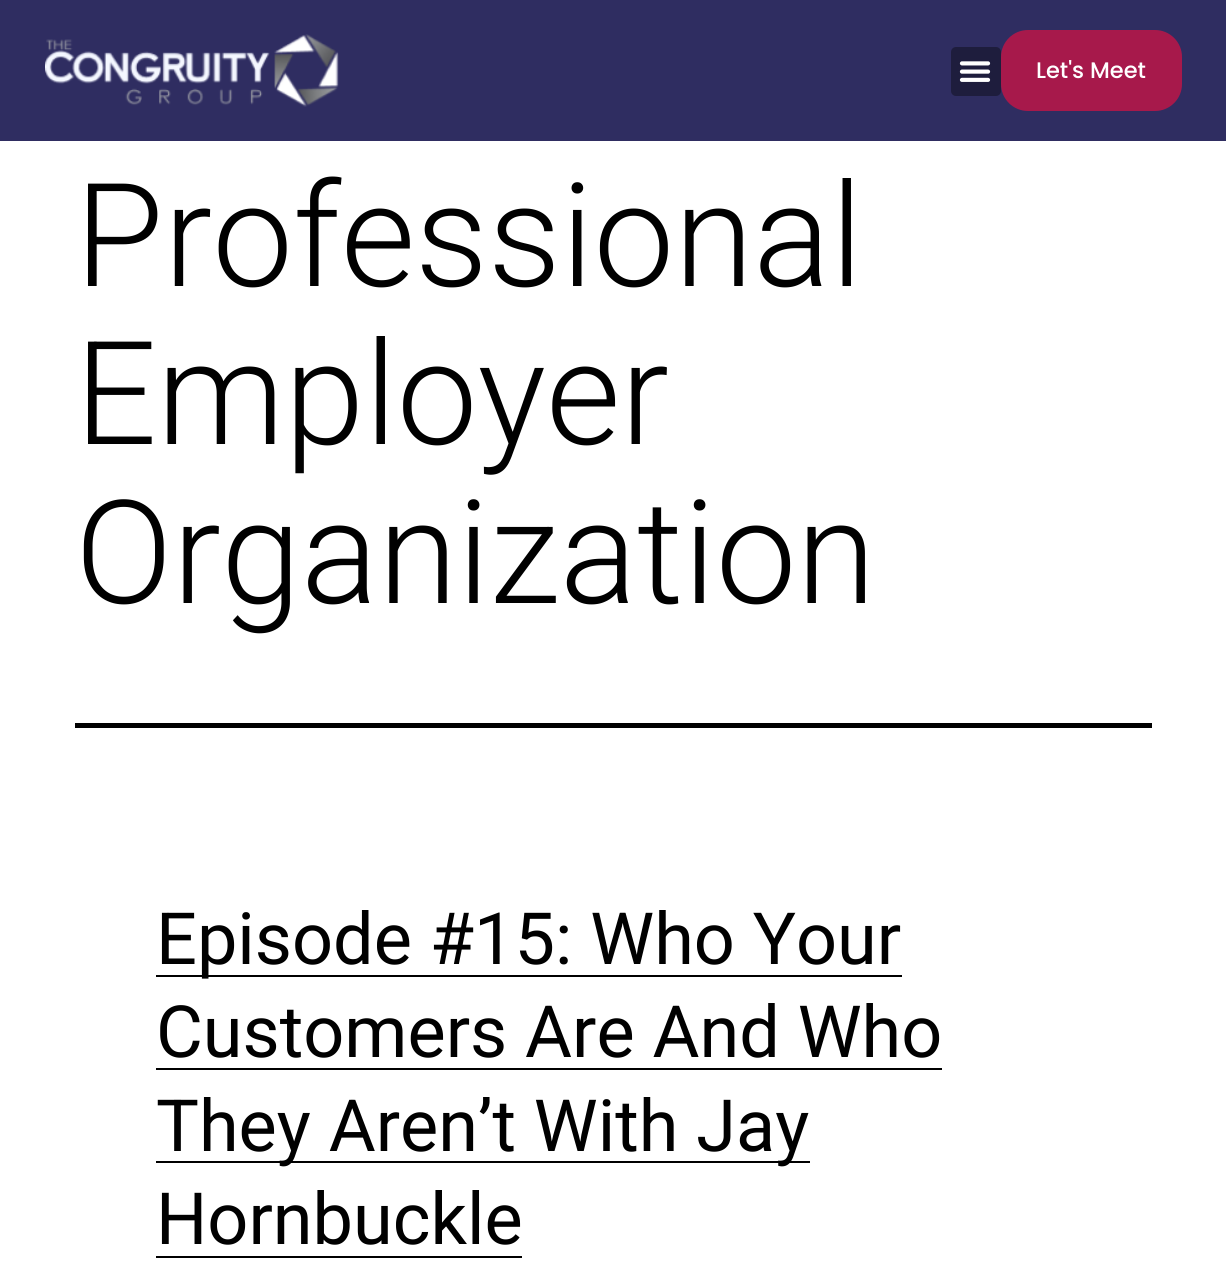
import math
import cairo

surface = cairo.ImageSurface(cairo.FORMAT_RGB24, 1226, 1264)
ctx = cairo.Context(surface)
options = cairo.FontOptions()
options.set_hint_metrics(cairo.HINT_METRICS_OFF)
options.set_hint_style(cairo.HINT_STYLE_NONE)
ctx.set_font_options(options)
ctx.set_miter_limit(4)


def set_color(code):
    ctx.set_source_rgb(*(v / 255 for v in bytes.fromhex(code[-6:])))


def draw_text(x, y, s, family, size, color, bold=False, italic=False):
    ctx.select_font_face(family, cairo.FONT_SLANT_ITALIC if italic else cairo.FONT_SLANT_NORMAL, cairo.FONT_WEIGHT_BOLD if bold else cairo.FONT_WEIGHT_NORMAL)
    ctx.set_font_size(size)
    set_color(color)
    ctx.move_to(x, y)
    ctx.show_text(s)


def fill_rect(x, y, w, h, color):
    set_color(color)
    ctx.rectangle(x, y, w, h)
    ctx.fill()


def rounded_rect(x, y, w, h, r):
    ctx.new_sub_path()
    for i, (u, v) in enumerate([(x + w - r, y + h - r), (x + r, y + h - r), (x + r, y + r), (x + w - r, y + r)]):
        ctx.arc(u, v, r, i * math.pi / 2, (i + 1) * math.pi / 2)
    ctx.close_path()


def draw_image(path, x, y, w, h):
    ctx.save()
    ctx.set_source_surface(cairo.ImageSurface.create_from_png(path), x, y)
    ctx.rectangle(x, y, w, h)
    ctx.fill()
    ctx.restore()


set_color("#ffffff")
ctx.paint()
ctx.set_source_rgba(0.035, 0.027, 0.267, 0.84)
ctx.rectangle(0, 0, 1226, 141)
ctx.fill()
draw_image("assets/img1.png", 45, 34, 294, 73)
set_color("#1e1d3d")
rounded_rect(951, 47, 50, 49, 5)
ctx.fill()
draw_image("assets/img2.png", 959, 61, 32, 21)
set_color("#a7194b")
rounded_rect(1001, 30, 181, 81, 27)
ctx.fill()
draw_text(1036, 78, "Let's Meet", "Poppins Medium", 22.5, "#ffffff")
fill_rect(75, 723, 1077, 5, "#000000")
draw_text(75, 286, "Professional", "Roboto Light", 144, "#000000")
draw_text(75, 444, "Employer", "Roboto Light", 144, "#000000")
draw_text(75, 603, "Organization", "Roboto Light", 144, "#000000")
fill_rect(156, 975, 746, 2, "#000000")
draw_text(156, 964, "Episode #15: Who Your", "Roboto", 72, "#000000")
draw_text(156, 1057, "Customers Are And Who", "Roboto", 72, "#000000")
fill_rect(156, 1068, 786, 2, "#000000")
fill_rect(156, 1161, 654, 2, "#000000")
draw_text(156, 1151, "They Aren’t With Jay", "Roboto", 72, "#000000")
draw_text(156, 1244, "Hornbuckle", "Roboto", 72, "#000000")
fill_rect(156, 1256, 366, 2, "#000000")
surface.write_to_png("output.png")
